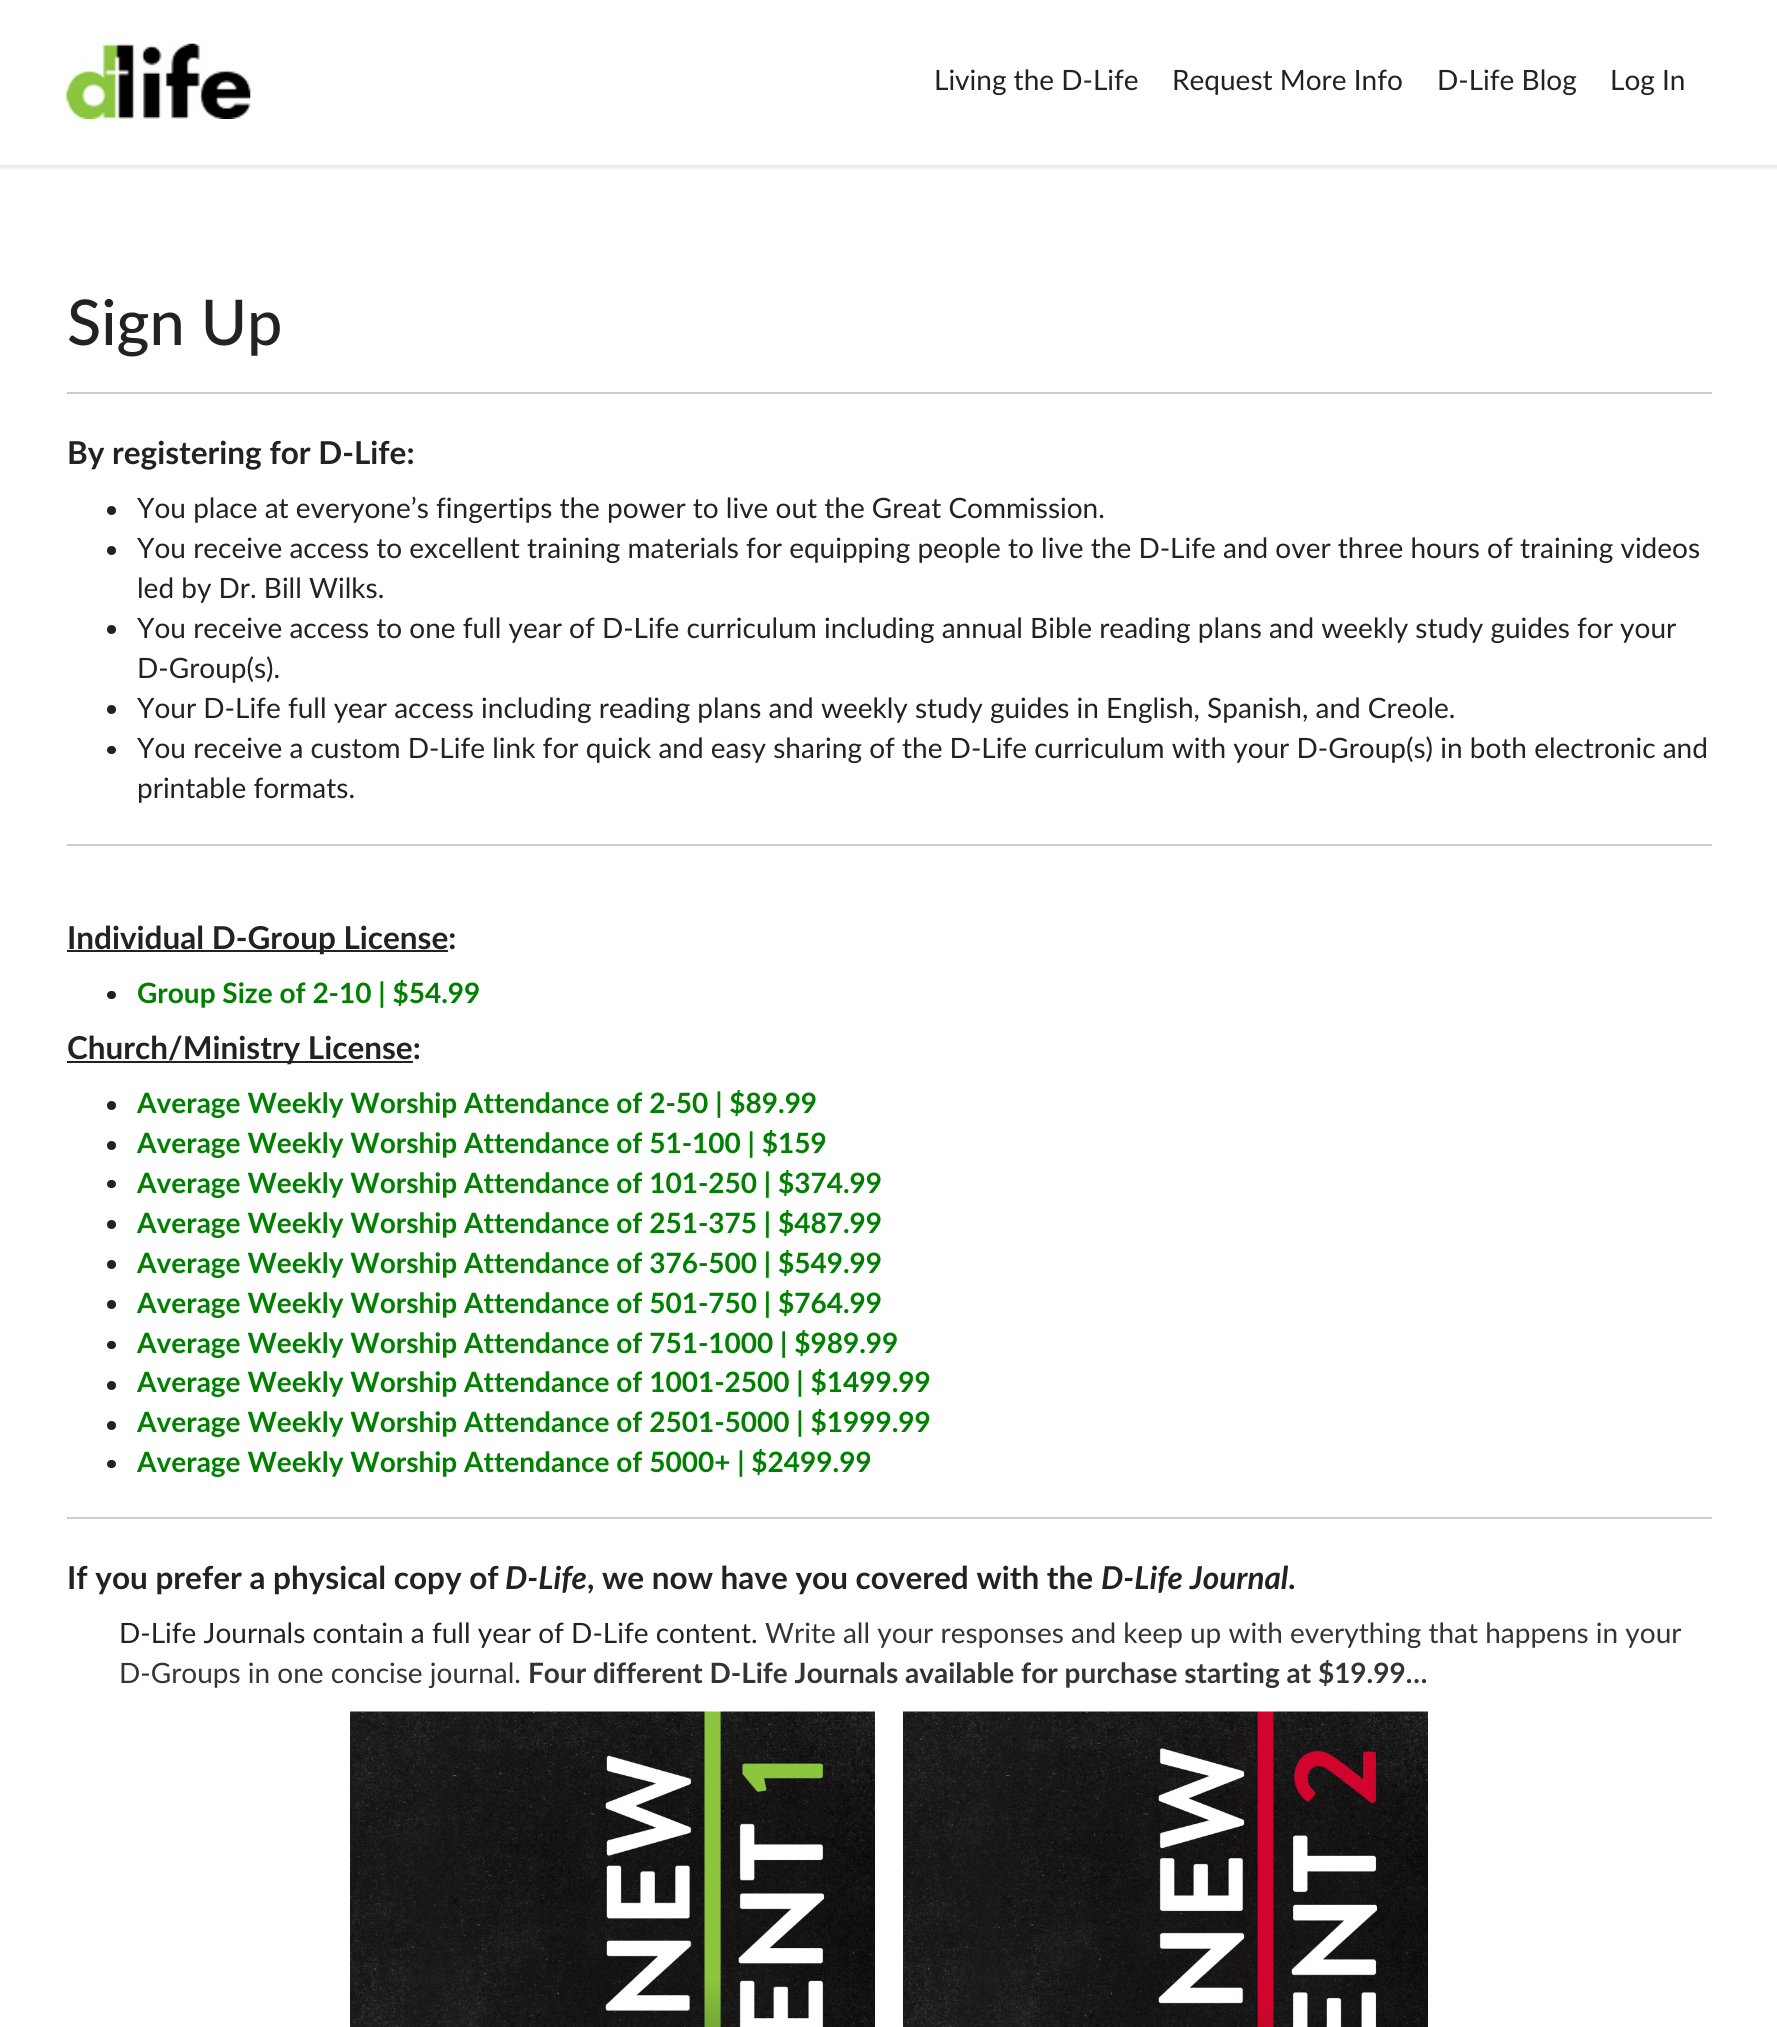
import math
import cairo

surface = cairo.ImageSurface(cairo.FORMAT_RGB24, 1777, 2027)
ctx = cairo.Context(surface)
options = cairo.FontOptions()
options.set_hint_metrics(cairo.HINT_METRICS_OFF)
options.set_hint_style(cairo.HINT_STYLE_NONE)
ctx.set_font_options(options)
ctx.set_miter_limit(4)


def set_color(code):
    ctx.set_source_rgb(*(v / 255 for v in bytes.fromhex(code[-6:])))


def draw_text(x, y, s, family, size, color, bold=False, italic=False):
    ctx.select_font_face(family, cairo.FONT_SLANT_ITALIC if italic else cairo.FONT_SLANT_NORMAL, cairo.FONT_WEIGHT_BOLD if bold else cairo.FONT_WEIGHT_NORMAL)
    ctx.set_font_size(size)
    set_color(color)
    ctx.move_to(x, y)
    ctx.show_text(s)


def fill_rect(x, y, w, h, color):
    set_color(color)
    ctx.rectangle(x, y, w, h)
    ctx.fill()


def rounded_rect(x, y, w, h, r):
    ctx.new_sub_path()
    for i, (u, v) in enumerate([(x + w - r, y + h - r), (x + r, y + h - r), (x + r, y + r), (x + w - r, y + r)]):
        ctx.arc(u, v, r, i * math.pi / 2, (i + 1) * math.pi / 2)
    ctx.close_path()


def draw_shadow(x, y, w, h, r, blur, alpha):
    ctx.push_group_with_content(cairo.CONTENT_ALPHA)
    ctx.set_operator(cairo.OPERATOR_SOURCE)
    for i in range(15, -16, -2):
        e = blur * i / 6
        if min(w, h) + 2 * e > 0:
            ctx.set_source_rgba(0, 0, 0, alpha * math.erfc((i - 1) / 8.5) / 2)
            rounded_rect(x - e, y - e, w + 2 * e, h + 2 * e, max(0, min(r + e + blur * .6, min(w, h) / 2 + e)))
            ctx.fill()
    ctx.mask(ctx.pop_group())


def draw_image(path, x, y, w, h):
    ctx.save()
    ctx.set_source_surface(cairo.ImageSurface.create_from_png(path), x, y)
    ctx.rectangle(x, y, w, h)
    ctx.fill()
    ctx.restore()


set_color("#ffffff")
ctx.paint()
set_color("#000000")
draw_shadow(0, 4, 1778, 164, 0, 2, 0.1)
fill_rect(0, 1, 1777, 164, "#ffffff")
draw_image("assets/img1.png", 66, 43, 185, 76)
draw_text(934, 90, "Living the D-Life", "Lato", 28, "#222222")
draw_text(1172, 90, "Request More Info", "Lato", 28, "#222222")
draw_text(1437, 90, "D-Life Blog", "Lato", 28, "#222222")
draw_text(1610, 90, "Log In", "Lato", 28, "#222222")
draw_text(67, 345, "Sign Up", "Lato Medium", 63, "#222222")
fill_rect(67, 392, 1645, 2, "#cccccc")
draw_text(67, 464, "By registering for D-Life:", "Lato", 31.5, "#222222", bold=True)
ctx.new_path()
ctx.arc(111.5, 510.5, 4.5, 0, 2 * math.pi)
ctx.fill()
draw_text(137, 518, "You place at everyone’s fingertips the power to live out the Great Commission.", "Lato", 28, "#222222")
ctx.new_path()
ctx.arc(111.5, 550.5, 4.5, 0, 2 * math.pi)
ctx.fill()
draw_text(137, 558, "You receive access to excellent training materials for equipping people to live the D-Life and over three hours of training videos", "Lato", 28, "#222222")
draw_text(137, 598, "led by Dr. Bill Wilks.", "Lato", 28, "#222222")
ctx.new_path()
ctx.arc(111.5, 629.5, 4.5, 0, 2 * math.pi)
ctx.fill()
draw_text(137, 638, "You receive access to one full year of D-Life curriculum including annual Bible reading plans and weekly study guides for your", "Lato", 28, "#222222")
draw_text(137, 678, "D-Group(s).", "Lato", 28, "#222222")
ctx.new_path()
ctx.arc(111.5, 709.5, 4.5, 0, 2 * math.pi)
ctx.fill()
draw_text(137, 718, "Your D-Life full year access including reading plans and weekly study guides in English, Spanish, and Creole.", "Lato", 28, "#222222")
rounded_rect(107, 746, 9, 8, 4)
ctx.fill()
draw_text(137, 758, "You receive a custom D-Life link for quick and easy sharing of the D-Life curriculum with your D-Group(s) in both electronic and", "Lato", 28, "#222222")
draw_text(137, 798, "printable formats.", "Lato", 28, "#222222")
fill_rect(67, 844, 1645, 2, "#cccccc")
fill_rect(67, 950, 381, 2, "#222222")
draw_text(67, 949, "Individual D-Group License:", "Lato", 31.5, "#222222", bold=True)
rounded_rect(107, 991, 9, 8, 4)
ctx.fill()
draw_text(137, 1003, "Group Size of 2-10 | $54.99", "Lato", 28, "#008000", bold=True)
fill_rect(67, 1061, 346, 2, "#222222")
draw_text(67, 1059, "Church/Ministry License:", "Lato", 31.5, "#222222", bold=True)
ctx.new_path()
ctx.arc(111.5, 1105.5, 4.5, 0, 2 * math.pi)
ctx.fill()
draw_text(137, 1113, "Average Weekly Worship Attendance of 2-50 | $89.99", "Lato", 28, "#008000", bold=True)
set_color("#222222")
ctx.new_path()
ctx.arc(111.5, 1145.5, 4.5, 0, 2 * math.pi)
ctx.fill()
draw_text(137, 1153, "Average Weekly Worship Attendance of 51-100 | $159", "Lato", 28, "#008000", bold=True)
set_color("#222222")
rounded_rect(107, 1180, 9, 8, 4)
ctx.fill()
draw_text(137, 1193, "Average Weekly Worship Attendance of 101-250 | $374.99", "Lato", 28, "#008000", bold=True)
set_color("#222222")
ctx.new_path()
ctx.arc(111.5, 1224.5, 4.5, 0, 2 * math.pi)
ctx.fill()
draw_text(137, 1233, "Average Weekly Worship Attendance of 251-375 | $487.99", "Lato", 28, "#008000", bold=True)
set_color("#222222")
ctx.new_path()
ctx.arc(111.5, 1264.5, 4.5, 0, 2 * math.pi)
ctx.fill()
draw_text(137, 1273, "Average Weekly Worship Attendance of 376-500 | $549.99", "Lato", 28, "#008000", bold=True)
set_color("#222222")
ctx.new_path()
ctx.arc(111.5, 1304.5, 4.5, 0, 2 * math.pi)
ctx.fill()
draw_text(137, 1313, "Average Weekly Worship Attendance of 501-750 | $764.99", "Lato", 28, "#008000", bold=True)
set_color("#222222")
rounded_rect(107, 1341, 9, 8, 4)
ctx.fill()
draw_text(137, 1353, "Average Weekly Worship Attendance of 751-1000 | $989.99", "Lato", 28, "#008000", bold=True)
set_color("#222222")
ctx.new_path()
ctx.arc(111.5, 1385.5, 4.5, 0, 2 * math.pi)
ctx.fill()
draw_text(137, 1392, "Average Weekly Worship Attendance of 1001-2500 | $1499.99", "Lato", 28, "#008000", bold=True)
set_color("#222222")
ctx.new_path()
ctx.arc(111.5, 1425.5, 4.5, 0, 2 * math.pi)
ctx.fill()
draw_text(137, 1432, "Average Weekly Worship Attendance of 2501-5000 | $1999.99", "Lato", 28, "#008000", bold=True)
set_color("#222222")
rounded_rect(107, 1460, 9, 8, 4)
ctx.fill()
draw_text(137, 1472, "Average Weekly Worship Attendance of 5000+ | $2499.99", "Lato", 28, "#008000", bold=True)
fill_rect(67, 1517, 1645, 2, "#cccccc")
draw_text(67, 1589, "If you prefer a physical copy of", "Lato", 31.5, "#222222", bold=True)
draw_text(505, 1589, "D-Life", "Lato", 31.5, "#222222", bold=True, italic=True)
draw_text(587, 1589, ", we now have you covered with the", "Lato", 31.5, "#222222", bold=True)
draw_text(1101, 1589, "D-Life Journal", "Lato", 31.5, "#222222", bold=True, italic=True)
draw_text(1288, 1589, ".", "Lato", 31.5, "#222222", bold=True)
draw_text(119, 1643, "D-Life Journals contain a full year of D-Life content.", "Lato", 28, "#222222")
draw_text(765, 1643, "Write all your responses and keep up with everything that happens in your", "Lato", 28, "#343434")
draw_text(119, 1683, "D-Groups in one concise journal.", "Lato", 28, "#343434")
draw_text(528, 1683, "Four different D-Life Journals available for purchase starting at $19.99…", "Lato", 28, "#343434", bold=True)
draw_image("assets/img2.png", 350, 1711, 525, 316)
draw_image("assets/img3.png", 903, 1711, 525, 316)
surface.write_to_png("output.png")
